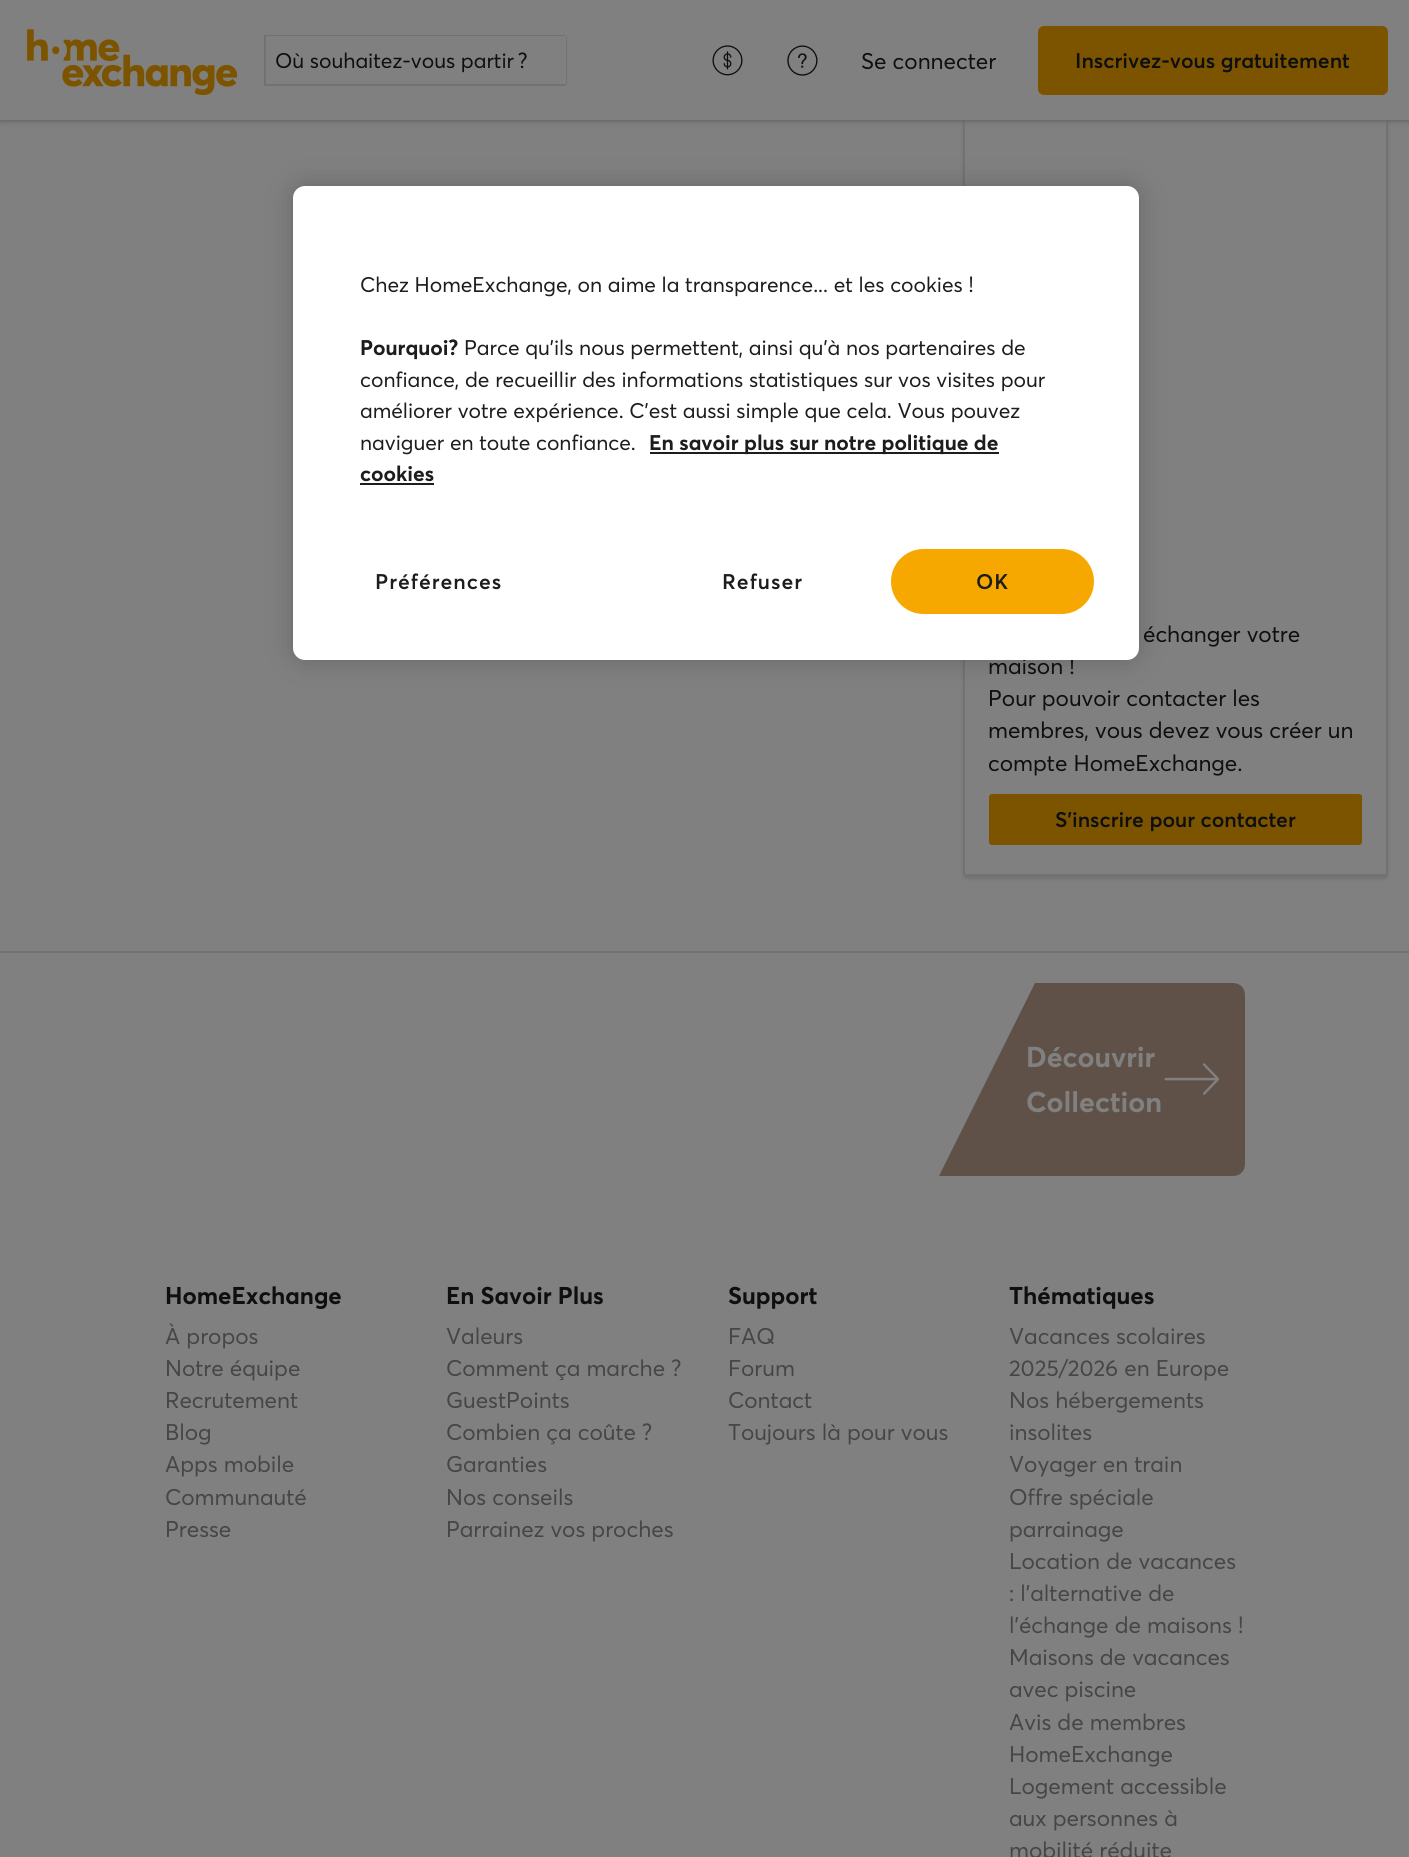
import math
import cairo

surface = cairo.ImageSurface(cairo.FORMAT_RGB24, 1409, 1857)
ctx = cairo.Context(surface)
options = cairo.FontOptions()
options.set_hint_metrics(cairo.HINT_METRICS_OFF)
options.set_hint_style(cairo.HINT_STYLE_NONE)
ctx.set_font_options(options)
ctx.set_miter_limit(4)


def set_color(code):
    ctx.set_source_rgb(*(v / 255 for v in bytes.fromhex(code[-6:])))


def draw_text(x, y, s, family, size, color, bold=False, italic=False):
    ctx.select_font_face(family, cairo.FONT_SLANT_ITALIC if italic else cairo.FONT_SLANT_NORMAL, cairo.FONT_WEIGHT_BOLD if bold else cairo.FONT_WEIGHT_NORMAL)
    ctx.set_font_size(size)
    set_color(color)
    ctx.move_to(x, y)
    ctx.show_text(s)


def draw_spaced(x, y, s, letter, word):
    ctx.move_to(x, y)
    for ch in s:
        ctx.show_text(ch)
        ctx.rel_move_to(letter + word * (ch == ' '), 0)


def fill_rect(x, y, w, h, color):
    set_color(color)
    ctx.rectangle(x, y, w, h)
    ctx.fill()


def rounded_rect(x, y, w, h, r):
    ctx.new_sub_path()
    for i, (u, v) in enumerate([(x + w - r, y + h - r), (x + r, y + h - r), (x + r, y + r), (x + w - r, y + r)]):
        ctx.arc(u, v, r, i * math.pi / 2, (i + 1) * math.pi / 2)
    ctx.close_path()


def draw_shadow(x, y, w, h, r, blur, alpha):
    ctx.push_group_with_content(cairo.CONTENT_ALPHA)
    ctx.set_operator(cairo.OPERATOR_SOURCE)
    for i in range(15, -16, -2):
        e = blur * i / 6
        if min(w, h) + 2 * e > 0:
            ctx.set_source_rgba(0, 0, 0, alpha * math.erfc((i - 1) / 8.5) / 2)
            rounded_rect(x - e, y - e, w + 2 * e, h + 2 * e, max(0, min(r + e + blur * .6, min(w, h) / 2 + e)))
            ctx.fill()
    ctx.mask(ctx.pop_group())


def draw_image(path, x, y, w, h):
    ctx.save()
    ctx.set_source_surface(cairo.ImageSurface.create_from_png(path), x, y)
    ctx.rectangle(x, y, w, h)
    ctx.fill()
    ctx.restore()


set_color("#808080")
ctx.paint()
set_color("#727272")
draw_shadow(963, -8, 425, 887, 3, 1.5, 1)
set_color("#808080")
rounded_rect(964, -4, 423, 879, 2)
ctx.fill_preserve()
set_color("#727272")
ctx.stroke()
set_color("#676767")
draw_shadow(0, 2, 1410, 120, 0, 2, 1)
fill_rect(0, 0, 1409, 120, "#808080")
draw_image("assets/img1.png", 27, 29, 211, 66)
ctx.new_path()
ctx.move_to(265, 36)
ctx.line_to(564, 36)
ctx.curve_to(565, 36, 566, 37, 566, 38)
ctx.line_to(566, 83)
ctx.curve_to(566, 84, 565, 85, 564, 85)
ctx.line_to(265, 85)
ctx.close_path()
set_color("#727272")
ctx.stroke()
fill_rect(266, 36, 300, 48, "#808080")
draw_text(275, 68, "Où souhaitez-vous partir ?", "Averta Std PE", 21, "#0d0f10")
draw_image("assets/img2.png", 712, 45, 31, 31)
draw_image("assets/img3.png", 787, 45, 31, 31)
draw_text(861, 69, "Se connecter", "Averta Std PE", 22.5, "#0d0f10")
set_color("#7c5400")
rounded_rect(1039, 27, 348, 67, 5)
ctx.fill_preserve()
ctx.stroke()
draw_text(1075, 68, "Inscrivez-vous gratuitement", "Averta Std PE SemiBold", 21, "#0d0f10")
set_color("#000000")
draw_shadow(293, 186, 846, 474, 12, 13.5, 0.2)
draw_text(988, 674, "maison !", "Averta Std PE", 22.5, "#0d0f10")
set_color("#ffffff")
rounded_rect(293, 186, 846, 474, 12)
ctx.fill()
draw_text(360, 292, "Chez HomeExchange, on aime la transparence... et les cookies !", "Averta Std PE", 21, "#1e1d1d")
draw_text(360, 355, "Pourquoi?", "Averta Std PE", 21, "#1e1d1d", bold=True)
draw_text(464, 355, "Parce qu'ils nous permettent, ainsi qu'à nos partenaires de", "Averta Std PE", 21, "#1e1d1d")
draw_text(360, 387, "confiance, de recueillir des informations statistiques sur vos visites pour", "Averta Std PE", 21, "#1e1d1d")
draw_text(360, 418, "améliorer votre expérience. C’est aussi simple que cela. Vous pouvez", "Averta Std PE", 21, "#1e1d1d")
draw_text(360, 450, "naviguer en toute confiance.", "Averta Std PE", 21, "#1e1d1d")
fill_rect(650, 452, 349, 2, "#1e1d1d")
draw_text(649, 450, "En savoir plus sur notre politique de", "Averta Std PE", 21, "#1e1d1d", bold=True)
draw_text(360, 481, "cookies", "Averta Std PE", 21, "#1e1d1d", bold=True)
fill_rect(360, 483, 74, 2, "#1e1d1d")
ctx.select_font_face("Averta Std PE SemiBold")
draw_spaced(375, 589, "Préférences", 1, 0)
draw_spaced(722, 589, "Refuser", 1, 0)
set_color("#f7a800")
rounded_rect(891, 549, 203, 65, 32.5)
ctx.fill()
set_color("#1e1d1d")
draw_spaced(976, 589, "OK", 1, 0)
draw_text(1143, 642, "échanger votre", "Averta Std PE", 22.5, "#0d0f10")
draw_text(988, 706, "Pour pouvoir contacter les", "Averta Std PE", 22.5, "#0d0f10")
draw_text(988, 738, "membres, vous devez vous créer un", "Averta Std PE", 22.5, "#0d0f10")
draw_text(988, 771, "compte HomeExchange.", "Averta Std PE", 22.5, "#0d0f10")
set_color("#7c5400")
rounded_rect(990, 795, 371, 49, 2)
ctx.fill_preserve()
ctx.stroke()
draw_text(1055, 827, "S'inscrire pour contacter", "Averta Std PE SemiBold", 21, "#0d0f10")
fill_rect(0, 951, 1409, 2, "#727272")
set_color("#5f5147")
ctx.new_path()
ctx.move_to(1245, 1164)
ctx.line_to(1245, 995)
ctx.curve_to(1245, 988, 1240, 983, 1233, 983)
ctx.line_to(1035, 983)
ctx.line_to(939, 1176)
ctx.line_to(1233, 1176)
ctx.curve_to(1240, 1176, 1245, 1171, 1245, 1164)
ctx.close_path()
ctx.fill()
draw_text(1026, 1067, "Découvrir", "Averta Std PE", 28.5, "#808080", bold=True)
draw_text(1026, 1112, "Collection", "Averta Std PE", 28.5, "#808080", bold=True)
draw_image("assets/img4.png", 1164, 1063, 56, 32)
draw_text(165, 1304, "HomeExchange", "Averta Std PE", 24, "#0d0f10", bold=True)
draw_text(165, 1344, "À propos", "Averta Std PE", 22.5, "#464646")
draw_text(165, 1376, "Notre équipe", "Averta Std PE", 22.5, "#464646")
draw_text(165, 1408, "Recrutement", "Averta Std PE", 22.5, "#464646")
draw_text(165, 1440, "Blog", "Averta Std PE", 22.5, "#464646")
draw_text(165, 1472, "Apps mobile", "Averta Std PE", 22.5, "#464646")
draw_text(165, 1505, "Communauté", "Averta Std PE", 22.5, "#464646")
draw_text(165, 1537, "Presse", "Averta Std PE", 22.5, "#464646")
draw_text(446, 1304, "En Savoir Plus", "Averta Std PE", 24, "#0d0f10", bold=True)
draw_text(446, 1344, "Valeurs", "Averta Std PE", 22.5, "#464646")
draw_text(446, 1376, "Comment ça marche ?", "Averta Std PE", 22.5, "#464646")
draw_text(446, 1408, "GuestPoints", "Averta Std PE", 22.5, "#464646")
draw_text(446, 1440, "Combien ça coûte ?", "Averta Std PE", 22.5, "#464646")
draw_text(446, 1472, "Garanties", "Averta Std PE", 22.5, "#464646")
draw_text(446, 1505, "Nos conseils", "Averta Std PE", 22.5, "#464646")
draw_text(446, 1537, "Parrainez vos proches", "Averta Std PE", 22.5, "#464646")
draw_text(728, 1304, "Support", "Averta Std PE", 24, "#0d0f10", bold=True)
draw_text(728, 1344, "FAQ", "Averta Std PE", 22.5, "#464646")
draw_text(728, 1376, "Forum", "Averta Std PE", 22.5, "#464646")
draw_text(728, 1408, "Contact", "Averta Std PE", 22.5, "#464646")
draw_text(728, 1440, "Toujours là pour vous", "Averta Std PE", 22.5, "#464646")
draw_text(1009, 1304, "Thématiques", "Averta Std PE", 24, "#0d0f10", bold=True)
draw_text(1009, 1344, "Vacances scolaires", "Averta Std PE", 22.5, "#464646")
draw_text(1009, 1376, "2025/2026 en Europe", "Averta Std PE", 22.5, "#464646")
draw_text(1009, 1408, "Nos hébergements", "Averta Std PE", 22.5, "#464646")
draw_text(1009, 1440, "insolites", "Averta Std PE", 22.5, "#464646")
draw_text(1009, 1472, "Voyager en train", "Averta Std PE", 22.5, "#464646")
draw_text(1009, 1505, "Offre spéciale", "Averta Std PE", 22.5, "#464646")
draw_text(1009, 1537, "parrainage", "Averta Std PE", 22.5, "#464646")
draw_text(1009, 1569, "Location de vacances", "Averta Std PE", 22.5, "#464646")
draw_text(1009, 1601, ": l'alternative de", "Averta Std PE", 22.5, "#464646")
draw_text(1009, 1633, "l'échange de maisons !", "Averta Std PE", 22.5, "#464646")
draw_text(1009, 1665, "Maisons de vacances", "Averta Std PE", 22.5, "#464646")
draw_text(1009, 1697, "avec piscine", "Averta Std PE", 22.5, "#464646")
draw_text(1009, 1730, "Avis de membres", "Averta Std PE", 22.5, "#464646")
draw_text(1009, 1762, "HomeExchange", "Averta Std PE", 22.5, "#464646")
draw_text(1009, 1794, "Logement accessible", "Averta Std PE", 22.5, "#464646")
draw_text(1009, 1826, "aux personnes à", "Averta Std PE", 22.5, "#464646")
draw_text(1009, 1858, "mobilité réduite", "Averta Std PE", 22.5, "#464646")
surface.write_to_png("output.png")
